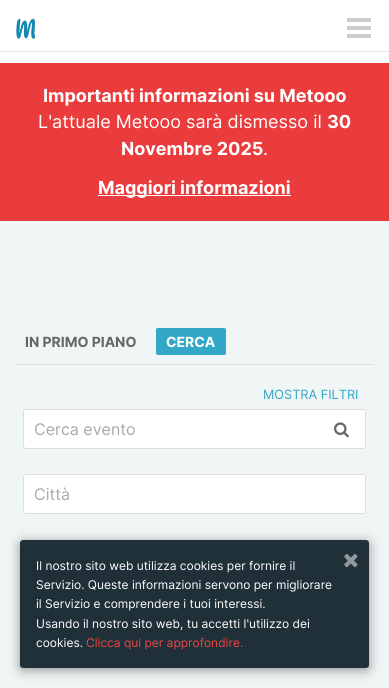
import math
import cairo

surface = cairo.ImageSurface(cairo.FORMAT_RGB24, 389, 688)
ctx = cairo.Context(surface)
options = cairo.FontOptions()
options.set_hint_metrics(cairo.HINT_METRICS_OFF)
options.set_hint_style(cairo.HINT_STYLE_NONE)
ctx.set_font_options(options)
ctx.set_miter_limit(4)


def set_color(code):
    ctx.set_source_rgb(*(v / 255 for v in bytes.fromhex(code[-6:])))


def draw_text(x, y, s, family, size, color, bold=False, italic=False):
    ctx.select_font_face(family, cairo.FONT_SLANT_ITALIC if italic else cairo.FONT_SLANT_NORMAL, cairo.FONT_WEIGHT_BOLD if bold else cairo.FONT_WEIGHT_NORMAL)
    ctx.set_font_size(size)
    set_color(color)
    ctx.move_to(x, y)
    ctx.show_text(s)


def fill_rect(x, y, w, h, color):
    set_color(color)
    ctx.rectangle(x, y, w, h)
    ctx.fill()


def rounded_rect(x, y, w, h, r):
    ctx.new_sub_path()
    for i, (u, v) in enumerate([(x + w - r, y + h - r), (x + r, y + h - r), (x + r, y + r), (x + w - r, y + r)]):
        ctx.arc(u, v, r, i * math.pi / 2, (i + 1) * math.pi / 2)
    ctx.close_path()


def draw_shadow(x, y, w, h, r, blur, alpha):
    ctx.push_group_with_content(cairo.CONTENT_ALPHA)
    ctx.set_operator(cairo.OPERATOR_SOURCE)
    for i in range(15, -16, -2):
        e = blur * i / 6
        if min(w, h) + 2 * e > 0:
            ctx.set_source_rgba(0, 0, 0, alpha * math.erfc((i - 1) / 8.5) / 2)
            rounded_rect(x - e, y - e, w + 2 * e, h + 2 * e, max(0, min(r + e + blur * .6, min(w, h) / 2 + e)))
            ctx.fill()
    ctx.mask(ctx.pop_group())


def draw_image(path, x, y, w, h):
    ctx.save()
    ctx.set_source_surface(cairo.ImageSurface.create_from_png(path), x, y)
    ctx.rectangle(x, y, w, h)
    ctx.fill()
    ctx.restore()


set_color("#ffffff")
ctx.paint()
fill_rect(0, 51, 389, 1, "#e6e6e6")
draw_image("assets/img1.png", 16, 18, 19, 21)
fill_rect(347, 34, 24, 4, "#cccccc")
fill_rect(347, 26, 24, 4, "#cccccc")
fill_rect(347, 18, 24, 4, "#cccccc")
fill_rect(0, 63, 389, 158, "#ea3c3d")
draw_text(43, 102, "Importanti informazioni su Metooo", "Inter", 18, "#ffffff", bold=True)
draw_text(38, 128, "L'attuale Metooo sarà dismesso il", "Inter", 18, "#ffffff")
draw_text(327, 128, "30", "Inter", 18, "#ffffff", bold=True)
draw_text(121, 155, "Novembre 2025", "Inter", 18, "#ffffff", bold=True)
draw_text(263, 155, ".", "Inter", 18, "#ffffff")
fill_rect(98, 195, 193, 1, "#ffffff")
draw_text(98, 194, "Maggiori informazioni", "Inter", 18, "#ffffff", bold=True)
fill_rect(0, 221, 389, 467, "#f0f5f6")
fill_rect(15, 364, 359, 1, "#dde2e3")
draw_text(25, 347, "IN PRIMO PIANO", "Inter", 14, "#666666", bold=True)
set_color("#32a7c6")
rounded_rect(156, 328, 70, 27, 2)
ctx.fill()
draw_text(166, 347, "CERCA", "Inter", 14, "#ffffff", bold=True)
draw_text(263, 399, "MOSTRA FILTRI", "Inter", 12.75, "#32a7c6")
set_color("#ffffff")
rounded_rect(23.5, 409.5, 342, 39, 2.5)
ctx.fill_preserve()
set_color("#dddddd")
ctx.set_line_width(1)
ctx.stroke()
draw_text(34, 435, "Cerca evento", "Inter", 16, "#a9a9a9")
draw_image("assets/img2.png", 334, 422, 15, 16)
set_color("#ffffff")
rounded_rect(23.5, 474.5, 342, 39, 2.5)
ctx.fill_preserve()
set_color("#dddddd")
ctx.stroke()
draw_text(34, 500, "Città", "Inter", 16, "#a9a9a9")
set_color("#000000")
draw_shadow(20, 542, 349, 128, 3, 6, 0.4)
set_color("#203038")
rounded_rect(20, 540, 349, 128, 3)
ctx.fill()
draw_text(36, 570, "Il nostro sito web utilizza cookies per fornire il", "Inter", 12, "#ffffff")
draw_text(36, 589, "Servizio. Queste informazioni servono per migliorare", "Inter", 12, "#ffffff")
draw_text(36, 608, "il Servizio e comprendere i tuoi interessi.", "Inter", 12, "#ffffff")
draw_text(36, 628, "Usando il nostro sito web, tu accetti l'utilizzo dei", "Inter", 12, "#ffffff")
draw_text(36, 647, "cookies.", "Inter", 12, "#ffffff")
draw_text(86, 647, "Clicca qui per approfondire.", "Inter", 12, "#ec4545")
draw_image("assets/img3.png", 344, 554, 14, 14)
surface.write_to_png("output.png")
